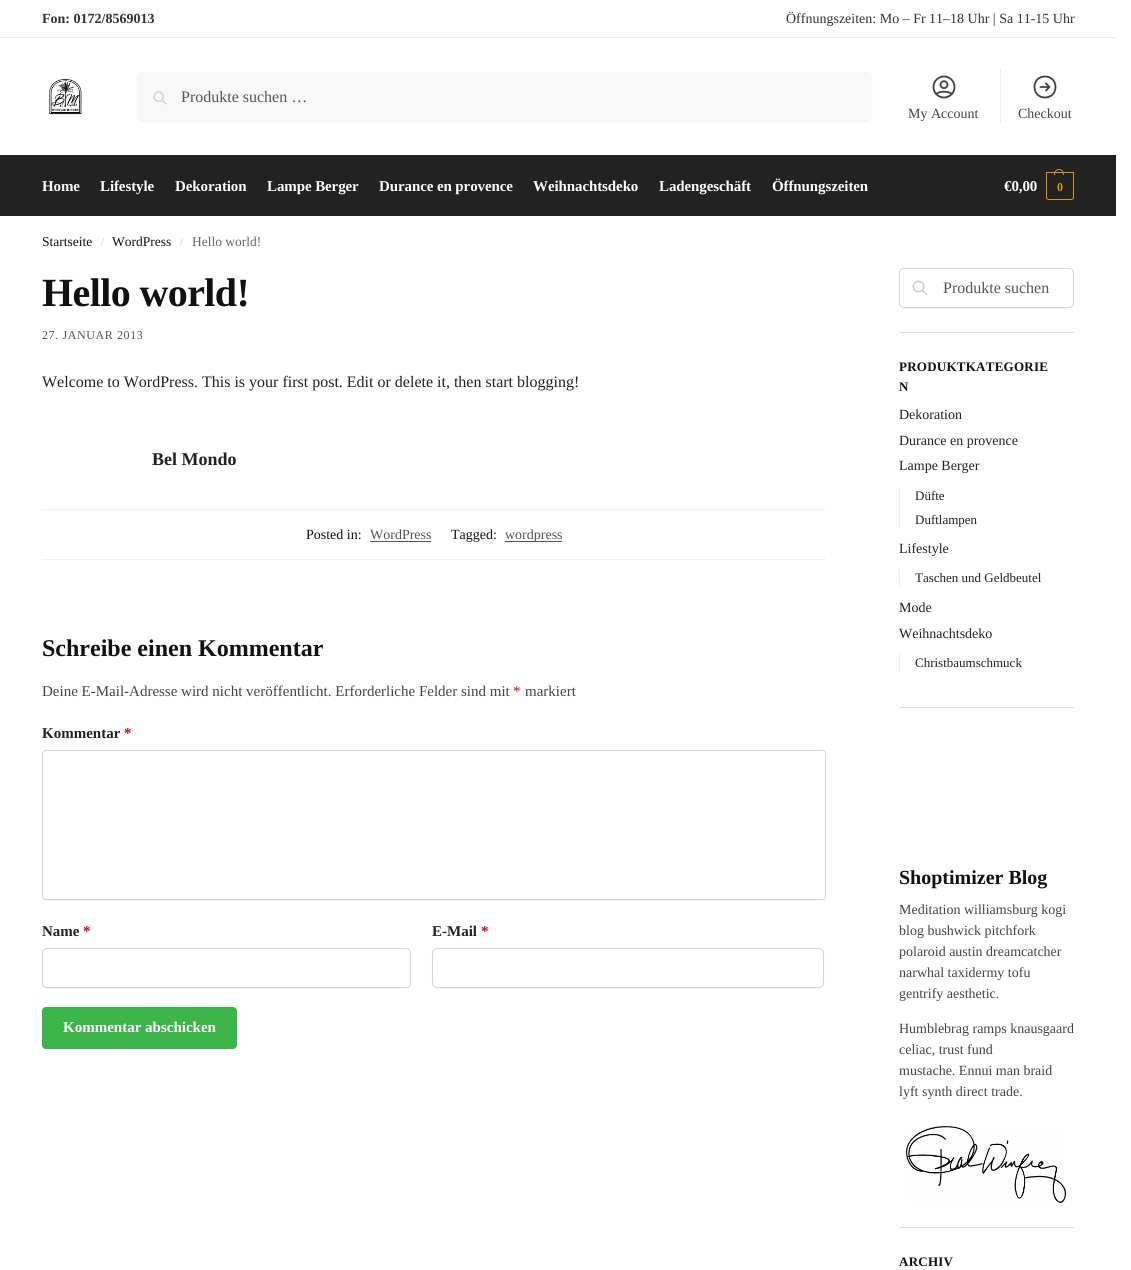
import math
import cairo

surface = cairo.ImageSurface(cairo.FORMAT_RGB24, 1131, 1270)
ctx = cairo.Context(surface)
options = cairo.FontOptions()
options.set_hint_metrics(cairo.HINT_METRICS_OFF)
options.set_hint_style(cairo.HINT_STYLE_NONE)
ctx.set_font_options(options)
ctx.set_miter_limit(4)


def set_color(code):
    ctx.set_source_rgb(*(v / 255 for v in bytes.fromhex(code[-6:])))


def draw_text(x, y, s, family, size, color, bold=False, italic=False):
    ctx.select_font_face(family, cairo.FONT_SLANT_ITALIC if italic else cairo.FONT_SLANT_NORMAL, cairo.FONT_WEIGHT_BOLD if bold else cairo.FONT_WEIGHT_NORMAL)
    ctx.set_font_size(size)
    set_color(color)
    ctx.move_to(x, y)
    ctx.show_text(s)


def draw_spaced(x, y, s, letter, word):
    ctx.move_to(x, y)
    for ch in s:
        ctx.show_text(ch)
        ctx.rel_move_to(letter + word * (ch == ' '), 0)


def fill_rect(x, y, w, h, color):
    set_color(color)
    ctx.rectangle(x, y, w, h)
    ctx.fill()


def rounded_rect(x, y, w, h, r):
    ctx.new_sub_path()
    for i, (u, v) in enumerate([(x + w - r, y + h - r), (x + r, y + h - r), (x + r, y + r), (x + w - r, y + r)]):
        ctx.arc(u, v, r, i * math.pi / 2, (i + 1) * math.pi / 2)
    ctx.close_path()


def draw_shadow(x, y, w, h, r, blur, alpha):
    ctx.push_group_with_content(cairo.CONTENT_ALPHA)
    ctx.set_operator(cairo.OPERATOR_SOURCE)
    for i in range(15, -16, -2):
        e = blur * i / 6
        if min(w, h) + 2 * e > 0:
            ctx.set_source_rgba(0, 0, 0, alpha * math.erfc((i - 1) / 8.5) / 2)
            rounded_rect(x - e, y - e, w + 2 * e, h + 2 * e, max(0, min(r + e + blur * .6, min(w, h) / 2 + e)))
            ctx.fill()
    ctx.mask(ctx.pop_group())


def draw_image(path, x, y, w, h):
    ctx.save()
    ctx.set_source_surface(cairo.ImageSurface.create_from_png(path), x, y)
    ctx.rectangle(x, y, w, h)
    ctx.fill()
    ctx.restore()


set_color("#ffffff")
ctx.paint()
fill_rect(0, 37, 1116, 1, "#eeeeee")
draw_text(42, 23, "Fon: 0172/8569013", "Liberation Serif", 14, "#323232", bold=True)
draw_text(786, 23, "Öffnungszeiten: Mo – Fr 11–18 Uhr | Sa 11-15 Uhr", "Liberation Serif", 14, "#323232")
draw_image("assets/img1.png", 49, 78, 33, 37)
set_color("#000000")
draw_shadow(137, 73, 735, 49, 5, 1, 0.05)
set_color("#f8f8f8")
rounded_rect(137, 72, 735, 49, 5)
ctx.fill()
draw_image("assets/img2.png", 153, 91, 14, 14)
draw_text(181, 102, "Produkte suchen …", "Liberation Serif", 16, "#555555")
draw_image("assets/img3.png", 932, 75, 24, 24)
draw_text(908, 118, "My Account", "Liberation Serif", 14, "#444444")
fill_rect(1000, 68, 1, 56, "#eeeeee")
ctx.new_path()
ctx.move_to(1046, 83.5)
ctx.line_to(1049.5, 87)
ctx.move_to(1049.5, 87)
ctx.line_to(1046, 90.5)
ctx.move_to(1049.5, 87)
ctx.line_to(1040.5, 87)
ctx.move_to(1055.5, 87)
ctx.curve_to(1055.5, 101, 1034.5, 101, 1034.5, 87)
ctx.curve_to(1034.5, 73, 1055.5, 73, 1055.5, 87)
ctx.close_path()
set_color("#404040")
ctx.set_line_width(1.8)
ctx.set_line_cap(cairo.LINE_CAP_ROUND)
ctx.set_line_join(cairo.LINE_JOIN_ROUND)
ctx.stroke()
draw_text(1018, 118, "Checkout", "Liberation Serif", 14, "#444444")
fill_rect(0, 155, 1116, 61, "#222222")
ctx.select_font_face("Liberation Serif", cairo.FONT_SLANT_NORMAL, cairo.FONT_WEIGHT_BOLD)
ctx.set_font_size(15)
set_color("#ffffff")
draw_spaced(42, 191, "Home", -0.1, 0)
draw_spaced(100, 191, "Lifestyle", -0.1, 0)
draw_spaced(175, 191, "Dekoration", -0.1, 0)
draw_spaced(267, 191, "Lampe Berger", -0.1, 0)
draw_spaced(379, 191, "Durance en provence", -0.1, 0)
draw_spaced(533, 191, "Weihnachtsdeko", -0.1, 0)
draw_spaced(659, 191, "Ladengeschäft", -0.1, 0)
draw_spaced(772, 191, "Öffnungszeiten", -0.1, 0)
draw_spaced(1004, 191, "€0,00", -0.1, 0)
ctx.new_path()
ctx.move_to(1046.5, 172.5)
ctx.line_to(1073.5, 172.5)
ctx.line_to(1073.5, 197)
ctx.curve_to(1073.5, 198.5, 1072.5, 199.5, 1071, 199.5)
ctx.line_to(1049, 199.5)
ctx.curve_to(1047.5, 199.5, 1046.5, 198.5, 1046.5, 197)
ctx.close_path()
set_color("#dc9814")
ctx.set_line_width(1)
ctx.set_line_cap(cairo.LINE_CAP_BUTT)
ctx.set_line_join(cairo.LINE_JOIN_MITER)
ctx.stroke()
ctx.set_fill_rule(cairo.FILL_RULE_EVEN_ODD)
ctx.new_path()
ctx.move_to(1059, 169)
ctx.curve_to(1062.5, 169, 1064, 172, 1064, 175)
ctx.line_to(1054, 175)
ctx.curve_to(1054, 172, 1055.5, 169, 1059, 169)
ctx.close_path()
ctx.move_to(1059, 170)
ctx.curve_to(1062, 170, 1063, 172.5, 1063, 175)
ctx.line_to(1055, 175)
ctx.curve_to(1055, 172.5, 1056, 170, 1059, 170)
ctx.close_path()
ctx.fill()
ctx.set_font_size(12)
draw_spaced(1057, 191, "0", -1, 0)
draw_text(42, 246, "Startseite", "Liberation Serif", 13.5, "#111111")
draw_text(101, 245, "/", "Liberation Serif", 11, "#c2c2c2")
draw_text(112, 246, "WordPress", "Liberation Serif", 13.5, "#111111")
draw_text(180, 245, "/", "Liberation Serif", 11, "#c2c2c2")
draw_text(192, 246, "Hello world!", "Liberation Serif", 13.5, "#666666")
ctx.select_font_face("Liberation Serif", cairo.FONT_SLANT_NORMAL, cairo.FONT_WEIGHT_BOLD)
ctx.set_font_size(40)
set_color("#111111")
draw_spaced(42, 306, "Hello world!", -0.6, 0)
ctx.select_font_face("Liberation Serif")
ctx.set_font_size(12)
set_color("#555555")
draw_spaced(42, 339, "27. JANUAR 2013", 0.6, 0)
draw_text(42, 387, "Welcome to WordPress. This is your first post. Edit or delete it, then start blogging!", "Liberation Serif", 16, "#222222")
draw_text(152, 465, "Bel Mondo", "Liberation Serif", 18, "#222222", bold=True)
fill_rect(42, 509, 784, 1, "#f2f2f2")
fill_rect(42, 559, 784, 1, "#f2f2f2")
draw_text(306, 539, "Posted in:", "Liberation Serif", 14, "#111111")
draw_text(370, 539, "WordPress", "Liberation Serif", 14, "#555555")
fill_rect(370, 541, 61, 1, "#555555")
draw_text(451, 539, "Tagged:", "Liberation Serif", 14, "#111111")
fill_rect(505, 541, 57, 1, "#555555")
draw_text(505, 539, "wordpress", "Liberation Serif", 14, "#555555")
draw_text(42, 656, "Schreibe einen Kommentar", "Liberation Serif", 24, "#111111", bold=True)
draw_text(42, 696, "Deine E-Mail-Adresse wird nicht veröffentlicht. Erforderliche Felder sind mit", "Liberation Serif", 15, "#444444")
draw_text(513, 696, "*", "Liberation Serif", 15, "#df0202")
draw_text(525, 696, "markiert", "Liberation Serif", 15, "#444444")
draw_text(42, 738, "Kommentar", "Liberation Serif", 15, "#222222", bold=True)
draw_text(124, 738, "*", "Liberation Serif", 15, "#df0202", bold=True)
set_color("#000000")
draw_shadow(42, 751, 784, 150, 4, 1, 0.05)
set_color("#ffffff")
rounded_rect(42.5, 750.5, 783, 149, 3.5)
ctx.fill_preserve()
set_color("#d2d6dc")
ctx.stroke()
draw_text(42, 936, "Name", "Liberation Serif", 15, "#222222", bold=True)
draw_text(83, 936, "*", "Liberation Serif", 15, "#df0202", bold=True)
set_color("#000000")
draw_shadow(42, 949, 369, 40, 5, 1, 0.05)
set_color("#ffffff")
rounded_rect(42.5, 948.5, 368, 39, 4.5)
ctx.fill_preserve()
set_color("#d2d6dc")
ctx.stroke()
draw_text(432, 936, "E-Mail", "Liberation Serif", 15, "#222222", bold=True)
draw_text(481, 936, "*", "Liberation Serif", 15, "#df0202", bold=True)
set_color("#000000")
draw_shadow(432, 949, 392, 40, 5, 1, 0.05)
set_color("#ffffff")
rounded_rect(432.5, 948.5, 391, 39, 4.5)
ctx.fill_preserve()
set_color("#d2d6dc")
ctx.stroke()
set_color("#3bb54a")
rounded_rect(42, 1007, 195, 42, 4)
ctx.fill()
draw_text(63, 1032, "Kommentar abschicken", "Liberation Serif", 15, "#ffffff", bold=True)
fill_rect(899, 332, 175, 1, "#dddddd")
set_color("#000000")
draw_shadow(899, 269, 175, 40, 5, 1, 0.05)
set_color("#ffffff")
rounded_rect(899.5, 268.5, 174, 39, 4.5)
ctx.fill_preserve()
set_color("#d2d6dc")
ctx.stroke()
draw_image("assets/img4.png", 912, 280, 16, 16)
draw_text(943, 293, "Produkte suchen", "Liberation Serif", 16, "#555555")
fill_rect(899, 707, 175, 1, "#dddddd")
ctx.select_font_face("Liberation Serif", cairo.FONT_SLANT_NORMAL, cairo.FONT_WEIGHT_BOLD)
ctx.set_font_size(13)
set_color("#111111")
draw_spaced(899, 371, "PRODUKTKATEGORIE", 0.25, 0)
draw_spaced(899, 391, "N", 0.25, 0)
draw_text(899, 419, "Dekoration", "Liberation Serif", 14, "#222222")
draw_text(899, 445, "Durance en provence", "Liberation Serif", 14, "#222222")
draw_text(899, 470, "Lampe Berger", "Liberation Serif", 14, "#222222")
fill_rect(899, 487, 1, 42, "#eeeeee")
draw_text(915, 500, "Düfte", "Liberation Serif", 13, "#222222")
draw_text(915, 524, "Duftlampen", "Liberation Serif", 13, "#222222")
draw_text(899, 553, "Lifestyle", "Liberation Serif", 14, "#222222")
fill_rect(899, 569, 1, 19, "#eeeeee")
draw_text(915, 582, "Taschen und Geldbeutel", "Liberation Serif", 13, "#222222")
draw_text(899, 612, "Mode", "Liberation Serif", 14, "#222222")
draw_text(899, 638, "Weihnachtsdeko", "Liberation Serif", 14, "#222222")
fill_rect(899, 654, 1, 19, "#eeeeee")
draw_text(915, 667, "Christbaumschmuck", "Liberation Serif", 13, "#222222")
fill_rect(899, 1227, 175, 1, "#dddddd")
draw_text(899, 884, "Shoptimizer Blog", "Liberation Serif", 20, "#111111", bold=True)
draw_text(899, 914, "Meditation williamsburg kogi", "Liberation Serif", 14, "#444444")
draw_text(899, 935, "blog bushwick pitchfork", "Liberation Serif", 14, "#444444")
draw_text(899, 956, "polaroid austin dreamcatcher", "Liberation Serif", 14, "#444444")
draw_text(899, 977, "narwhal taxidermy tofu", "Liberation Serif", 14, "#444444")
draw_text(899, 998, "gentrify aesthetic.", "Liberation Serif", 14, "#444444")
draw_text(899, 1033, "Humblebrag ramps knausgaard", "Liberation Serif", 14, "#444444")
draw_text(899, 1054, "celiac, trust fund", "Liberation Serif", 14, "#444444")
draw_text(899, 1075, "mustache. Ennui man braid", "Liberation Serif", 14, "#444444")
draw_text(899, 1096, "lyft synth direct trade.", "Liberation Serif", 14, "#444444")
draw_image("assets/img5.png", 906, 1126, 160, 77)
ctx.select_font_face("Liberation Serif", cairo.FONT_SLANT_NORMAL, cairo.FONT_WEIGHT_BOLD)
ctx.set_font_size(13)
set_color("#111111")
draw_spaced(899, 1266, "ARCHIV", 0.25, 0)
surface.write_to_png("output.png")
